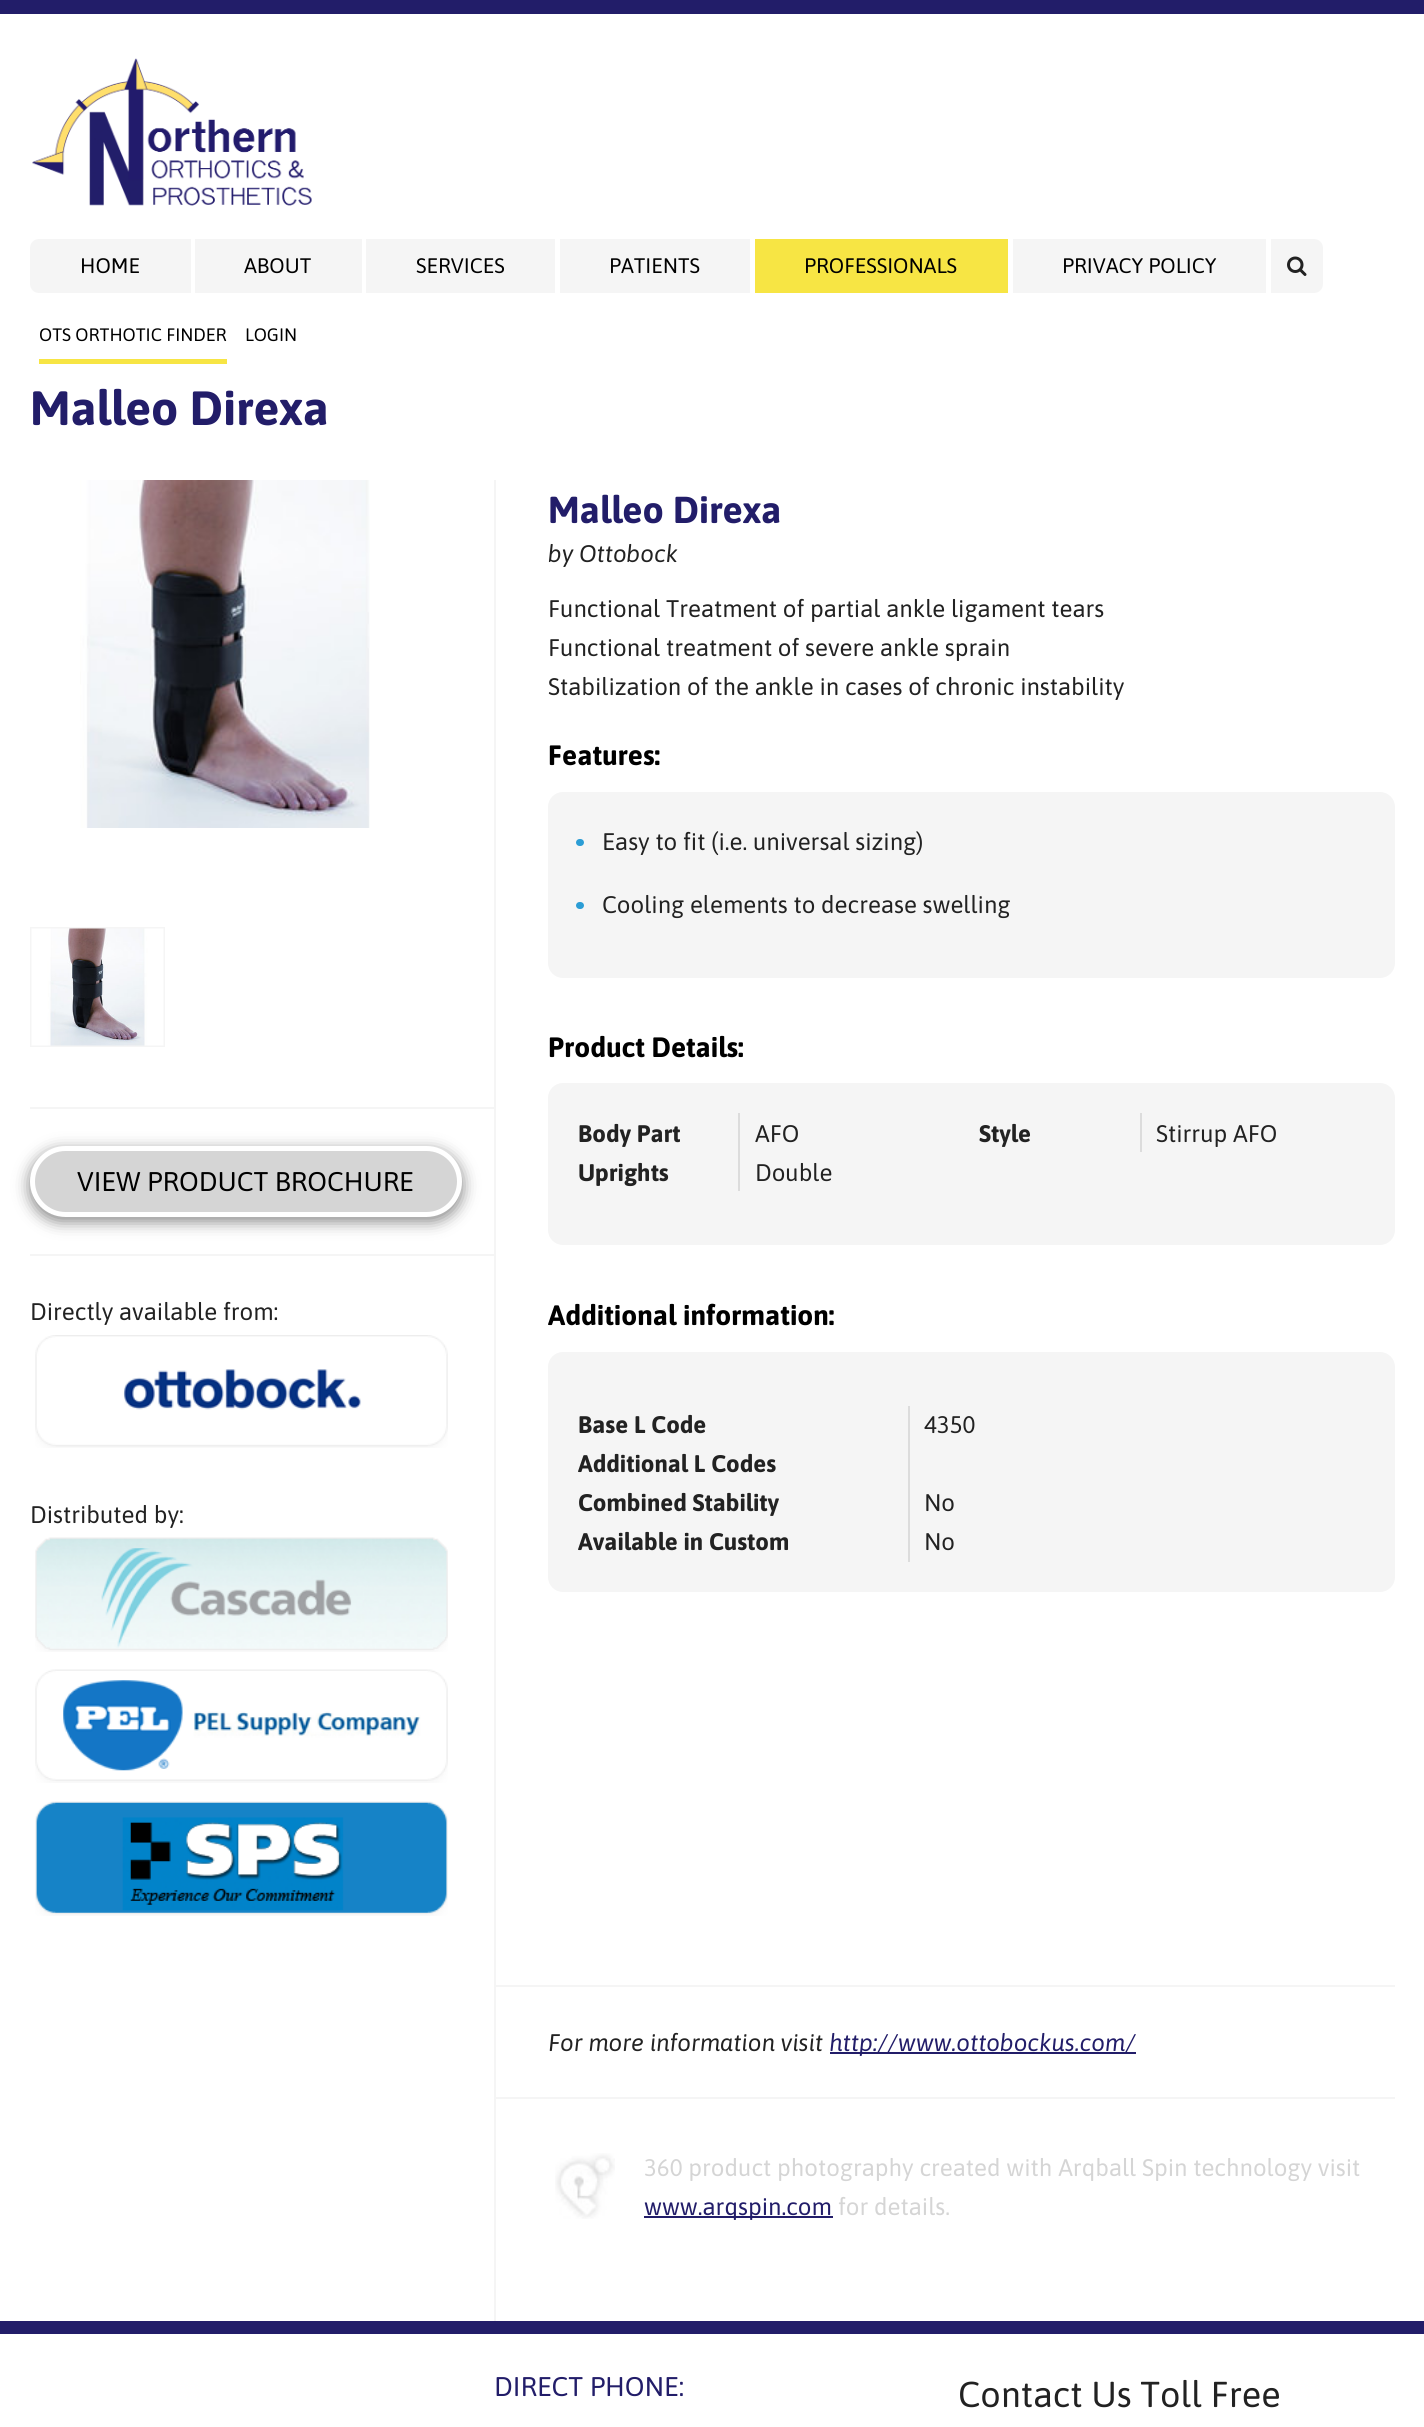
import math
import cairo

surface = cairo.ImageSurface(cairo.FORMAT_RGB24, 1424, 2427)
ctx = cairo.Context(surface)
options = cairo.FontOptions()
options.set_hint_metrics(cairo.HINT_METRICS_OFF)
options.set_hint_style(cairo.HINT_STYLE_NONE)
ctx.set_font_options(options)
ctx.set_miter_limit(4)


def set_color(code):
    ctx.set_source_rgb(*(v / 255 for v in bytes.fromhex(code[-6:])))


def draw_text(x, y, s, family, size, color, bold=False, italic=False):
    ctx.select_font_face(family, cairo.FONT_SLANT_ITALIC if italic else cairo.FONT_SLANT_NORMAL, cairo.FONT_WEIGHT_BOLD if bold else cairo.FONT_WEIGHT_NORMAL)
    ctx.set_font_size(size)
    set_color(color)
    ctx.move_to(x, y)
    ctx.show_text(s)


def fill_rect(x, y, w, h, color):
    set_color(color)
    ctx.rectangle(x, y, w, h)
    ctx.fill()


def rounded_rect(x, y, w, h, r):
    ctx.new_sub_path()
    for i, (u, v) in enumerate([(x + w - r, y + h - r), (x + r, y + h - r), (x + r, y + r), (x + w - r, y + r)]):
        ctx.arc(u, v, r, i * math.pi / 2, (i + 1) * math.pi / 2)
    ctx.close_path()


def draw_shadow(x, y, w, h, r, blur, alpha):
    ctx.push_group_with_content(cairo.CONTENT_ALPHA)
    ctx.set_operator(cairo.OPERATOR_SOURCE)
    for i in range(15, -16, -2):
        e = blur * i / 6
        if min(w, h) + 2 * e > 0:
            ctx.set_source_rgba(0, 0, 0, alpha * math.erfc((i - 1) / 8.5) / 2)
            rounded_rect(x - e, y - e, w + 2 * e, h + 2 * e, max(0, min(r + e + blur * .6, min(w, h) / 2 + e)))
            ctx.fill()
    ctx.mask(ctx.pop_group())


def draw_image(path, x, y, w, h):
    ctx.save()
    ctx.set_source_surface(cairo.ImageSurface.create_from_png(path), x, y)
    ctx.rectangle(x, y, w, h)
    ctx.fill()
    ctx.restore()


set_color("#ffffff")
ctx.paint()
fill_rect(0, 0, 1424, 14, "#221d69")
draw_image("assets/img1.png", 32, 58, 280, 148)
fill_rect(755, 239, 253, 54, "#f7e544")
draw_text(804, 273, "PROFESSIONALS", "Asap", 21, "#000000")
fill_rect(39, 359, 188, 5, "#f7e544")
draw_text(39, 341, "OTS ORTHOTIC FINDER", "Asap", 18, "#000000")
draw_text(245, 341, "LOGIN", "Asap", 18, "#000000")
set_color("#f5f5f5")
ctx.new_path()
ctx.move_to(1271, 239)
ctx.line_to(1314, 239)
ctx.curve_to(1319, 239, 1323, 243, 1323, 248)
ctx.line_to(1323, 284)
ctx.curve_to(1323, 289, 1319, 293, 1314, 293)
ctx.line_to(1271, 293)
ctx.close_path()
ctx.fill()
draw_image("assets/img2.png", 1287, 256, 20, 20)
ctx.new_path()
ctx.move_to(39, 239)
ctx.line_to(191, 239)
ctx.line_to(191, 293)
ctx.line_to(39, 293)
ctx.curve_to(34, 293, 30, 289, 30, 284)
ctx.line_to(30, 248)
ctx.curve_to(30, 243, 34, 239, 39, 239)
ctx.close_path()
ctx.fill()
draw_text(80, 273, "HOME", "Asap", 21, "#000000")
fill_rect(195, 239, 167, 54, "#f5f5f5")
draw_text(244, 273, "ABOUT", "Asap", 21, "#000000")
fill_rect(366, 239, 189, 54, "#f5f5f5")
draw_text(416, 273, "SERVICES", "Asap", 21, "#000000")
fill_rect(560, 239, 190, 54, "#f5f5f5")
draw_text(609, 273, "PATIENTS", "Asap", 21, "#000000")
fill_rect(1013, 239, 253, 54, "#f5f5f5")
draw_text(1062, 273, "PRIVACY POLICY", "Asap", 21, "#000000")
draw_text(30, 425, "Malleo Direxa", "Asap", 48, "#221d69", bold=True)
draw_image("assets/img3.png", 80, 480, 290, 348)
ctx.rectangle(31, 928, 133, 118)
set_color("#f5f5f5")
ctx.stroke()
draw_image("assets/img4.png", 31, 928, 133, 118)
fill_rect(494, 480, 2, 1841, "#f5f5f5")
fill_rect(30, 1107, 465, 2, "#f5f5f5")
fill_rect(30, 1254, 465, 2, "#f5f5f5")
set_color("#000000")
draw_shadow(30, 1151, 432, 70, 35, 8, 0.5)
set_color("#d5d5d5")
rounded_rect(32.5, 1148.5, 427, 66, 33)
ctx.fill_preserve()
set_color("#ffffff")
ctx.set_line_width(5)
ctx.stroke()
draw_text(77, 1191, "VIEW PRODUCT BROCHURE", "Asap", 27, "#000000")
draw_text(30, 1320, "Directly available from:", "Asap", 24, "#222222")
draw_image("assets/img5.png", 35, 1335, 413, 113)
draw_text(30, 1523, "Distributed by:", "Asap", 24, "#222222")
draw_image("assets/img6.png", 35, 1537, 413, 115)
draw_image("assets/img7.png", 35, 1669, 413, 114)
draw_image("assets/img8.png", 35, 1801, 413, 115)
draw_text(548, 523, "Malleo Direxa", "Asap", 37.5, "#221d69", bold=True)
draw_text(548, 562, "by Ottobock", "Asap", 24, "#222222", italic=True)
draw_text(548, 617, "Functional Treatment of partial ankle ligament tears", "Asap", 24, "#222222")
draw_text(548, 656, "Functional treatment of severe ankle sprain", "Asap", 24, "#222222")
draw_text(548, 695, "Stabilization of the ankle in cases of chronic instability", "Asap", 24, "#222222")
draw_text(548, 765, "Features:", "Asap", 28, "#000000", bold=True)
set_color("#f5f5f5")
rounded_rect(548, 792, 847, 186, 15)
ctx.fill()
set_color("#2b9dd5")
rounded_rect(576, 839, 8, 7, 3.5)
ctx.fill()
draw_text(602, 850, "Easy to fit (i.e. universal sizing)", "Asap", 24, "#222222")
set_color("#2b9dd5")
rounded_rect(576, 902, 8, 7, 3.5)
ctx.fill()
draw_text(602, 913, "Cooling elements to decrease swelling", "Asap", 24, "#222222")
draw_text(548, 1057, "Product Details:", "Asap", 28, "#000000", bold=True)
set_color("#f5f5f5")
rounded_rect(548, 1083, 847, 162, 15)
ctx.fill()
fill_rect(738, 1113, 2, 78, "#dcdcdc")
draw_text(578, 1142, "Body Part", "Asap", 24, "#222222", bold=True)
draw_text(755, 1142, "AFO", "Asap", 24, "#222222")
draw_text(578, 1181, "Uprights", "Asap", 24, "#222222", bold=True)
draw_text(755, 1181, "Double", "Asap", 24, "#222222")
fill_rect(1140, 1113, 2, 39, "#dcdcdc")
draw_text(979, 1142, "Style", "Asap", 24, "#222222", bold=True)
draw_text(1156, 1142, "Stirrup AFO", "Asap", 24, "#222222")
draw_text(548, 1325, "Additional information:", "Asap", 28, "#000000", bold=True)
set_color("#f5f5f5")
rounded_rect(548, 1352, 847, 240, 15)
ctx.fill()
fill_rect(908, 1406, 2, 156, "#dcdcdc")
draw_text(578, 1433, "Base L Code", "Asap", 24, "#222222", bold=True)
draw_text(924, 1433, "4350", "Asap", 24, "#222222")
draw_text(578, 1472, "Additional L Codes", "Asap", 24, "#222222", bold=True)
draw_text(578, 1511, "Combined Stability", "Asap", 24, "#222222", bold=True)
draw_text(924, 1511, "No", "Asap", 24, "#222222")
draw_text(578, 1550, "Available in Custom", "Asap", 24, "#222222", bold=True)
draw_text(924, 1550, "No", "Asap", 24, "#222222")
fill_rect(495, 1985, 900, 2, "#f5f5f5")
fill_rect(495, 2097, 900, 2, "#f5f5f5")
draw_text(548, 2051, "For more information visit", "Asap", 24, "#222222", italic=True)
fill_rect(830, 2052, 306, 2, "#221d69")
draw_text(829, 2051, "http://www.ottobockus.com/", "Asap", 24, "#221d69", italic=True)
draw_image("assets/img9.png", 555, 2153, 60, 66)
draw_text(644, 2176, "360 product photography created with Arqball Spin technology visit", "Asap", 24, "#d5d5d5")
fill_rect(644, 2216, 189, 2, "#221d69")
draw_text(644, 2215, "www.arqspin.com", "Asap", 24, "#221d69")
draw_text(838, 2215, "for details.", "Asap", 24, "#d5d5d5")
fill_rect(0, 2321, 1424, 13, "#221d69")
draw_text(494, 2396, "DIRECT PHONE:", "Asap", 27, "#221d69")
draw_text(958, 2407, "Contact Us Toll Free", "Asap", 36, "#222222")
surface.write_to_png("output.png")
